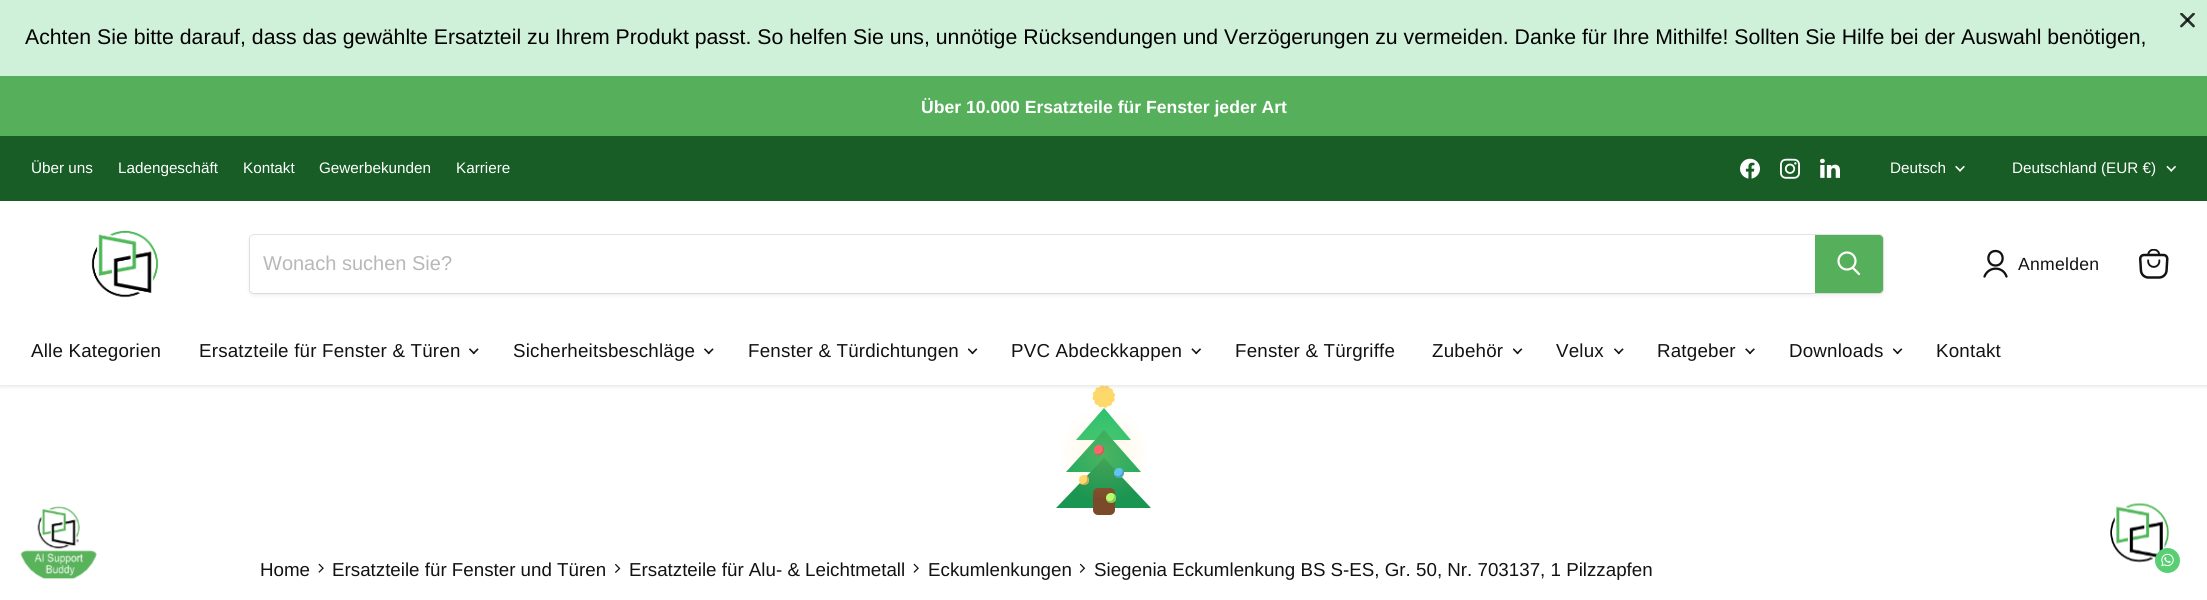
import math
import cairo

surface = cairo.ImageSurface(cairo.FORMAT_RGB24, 2207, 600)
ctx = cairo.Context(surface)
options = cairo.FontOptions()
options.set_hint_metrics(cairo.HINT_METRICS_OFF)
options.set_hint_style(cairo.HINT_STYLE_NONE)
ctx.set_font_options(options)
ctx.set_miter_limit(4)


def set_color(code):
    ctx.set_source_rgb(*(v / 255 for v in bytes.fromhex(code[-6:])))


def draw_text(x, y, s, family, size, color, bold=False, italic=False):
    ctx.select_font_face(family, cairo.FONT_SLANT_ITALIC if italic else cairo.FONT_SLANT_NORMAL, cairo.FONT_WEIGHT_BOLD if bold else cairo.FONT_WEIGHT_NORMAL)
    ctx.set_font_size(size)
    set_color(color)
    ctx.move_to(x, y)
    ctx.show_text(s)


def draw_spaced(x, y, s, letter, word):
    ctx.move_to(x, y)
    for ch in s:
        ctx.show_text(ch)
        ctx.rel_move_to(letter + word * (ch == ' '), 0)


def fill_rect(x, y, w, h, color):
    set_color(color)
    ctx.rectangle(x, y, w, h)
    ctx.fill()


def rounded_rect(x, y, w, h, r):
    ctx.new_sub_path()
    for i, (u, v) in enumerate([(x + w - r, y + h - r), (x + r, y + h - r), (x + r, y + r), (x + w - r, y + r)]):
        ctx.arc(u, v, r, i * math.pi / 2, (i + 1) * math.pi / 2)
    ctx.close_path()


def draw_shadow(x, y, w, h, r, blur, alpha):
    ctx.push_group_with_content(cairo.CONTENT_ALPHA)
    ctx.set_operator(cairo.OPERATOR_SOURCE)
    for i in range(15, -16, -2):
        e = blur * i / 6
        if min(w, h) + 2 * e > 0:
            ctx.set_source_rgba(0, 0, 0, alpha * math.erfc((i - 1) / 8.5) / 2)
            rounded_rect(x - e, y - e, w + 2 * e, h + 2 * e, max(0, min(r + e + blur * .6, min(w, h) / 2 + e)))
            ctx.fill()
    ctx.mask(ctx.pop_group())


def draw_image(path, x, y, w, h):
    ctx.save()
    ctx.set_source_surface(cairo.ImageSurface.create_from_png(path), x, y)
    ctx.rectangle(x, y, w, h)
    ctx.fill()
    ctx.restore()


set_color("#ffffff")
ctx.paint()
fill_rect(0, 0, 2207, 76, "#d0f1d9")
draw_image("assets/img1.png", 2180, 13, 15, 15)
draw_text(25, 44, "Achten Sie bitte darauf, dass das gewählte Ersatzteil zu Ihrem Produkt passt. So helfen Sie uns, unnötige Rücksendungen und Verzögerungen zu vermeiden. Danke für Ihre Mithilfe! Sollten Sie Hilfe bei der Auswahl benötigen,", "Liberation Sans", 21.25, "#000000")
fill_rect(0, 76, 2207, 60, "#56af5b")
draw_text(921, 113, "Über 10.000 Ersatzteile für Fenster jeder Art", "Liberation Sans", 17.6, "#ffffff", bold=True)
set_color("#ffd86b")
ctx.new_path()
ctx.move_to(1103.5, 386)
ctx.line_to(1114, 393)
ctx.curve_to(1115, 394, 1115.5, 395.5, 1114.5, 396.5)
ctx.line_to(1107.5, 406.5)
ctx.curve_to(1106.5, 408, 1105, 408, 1104, 407.5)
ctx.line_to(1093.5, 400)
ctx.curve_to(1092.5, 399.5, 1092, 398, 1093, 396.5)
ctx.line_to(1100, 386.5)
ctx.curve_to(1101, 385.5, 1102.5, 385, 1103.5, 386)
ctx.close_path()
ctx.fill()
ctx.new_path()
ctx.move_to(1113, 391)
ctx.line_to(1112, 403.5)
ctx.curve_to(1112, 405, 1110.5, 406, 1109, 406)
ctx.line_to(1097, 405)
ctx.curve_to(1095.5, 404.5, 1094.5, 403.5, 1094.5, 402)
ctx.line_to(1095.5, 389.5)
ctx.curve_to(1095.5, 388, 1097, 387, 1098.5, 387.5)
ctx.line_to(1110.5, 388.5)
ctx.curve_to(1112, 388.5, 1113, 390, 1113, 391)
ctx.close_path()
ctx.fill()
ctx.new_path()
ctx.move_to(1094.5, 391.5)
ctx.line_to(1105.5, 386)
ctx.curve_to(1107, 385.5, 1108.5, 386, 1109, 387)
ctx.line_to(1114.5, 398.5)
ctx.curve_to(1115, 400, 1114.5, 401.5, 1113, 402)
ctx.line_to(1102, 407)
ctx.curve_to(1100.5, 408, 1099, 407, 1098.5, 406)
ctx.line_to(1093, 394.5)
ctx.curve_to(1092.5, 393.5, 1093, 392, 1094.5, 391.5)
ctx.close_path()
ctx.fill()
set_color("#808080")
draw_shadow(0, 203, 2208, 183, 0, 2.5, 0.25)
fill_rect(0, 136, 2207, 65, "#175d25")
draw_text(31, 173, "Über uns", "Liberation Sans", 15.25, "#ffffff")
draw_text(118, 173, "Ladengeschäft", "Liberation Sans", 15.25, "#ffffff")
draw_text(243, 173, "Kontakt", "Liberation Sans", 15.25, "#ffffff")
draw_text(319, 173, "Gewerbekunden", "Liberation Sans", 15.25, "#ffffff")
draw_text(456, 173, "Karriere", "Liberation Sans", 15.25, "#ffffff")
draw_image("assets/img2.png", 1740, 158, 20, 21)
draw_image("assets/img3.png", 1780, 158, 20, 21)
draw_image("assets/img4.png", 1820, 158, 20, 20)
draw_text(1890, 173, "Deutsch", "Liberation Sans", 15.25, "#ffffff")
draw_image("assets/img5.png", 1955, 165, 10, 7)
draw_text(2012, 173, "Deutschland (EUR €)", "Liberation Sans", 15.25, "#ffffff")
draw_image("assets/img6.png", 2166, 165, 10, 7)
fill_rect(0, 201, 2207, 184, "#ffffff")
draw_image("assets/img7.png", 91, 230, 68, 68)
set_color("#808080")
draw_shadow(249, 236, 1635, 60, 5, 2, 0.11)
rounded_rect(249.5, 234.5, 1634, 59, 4.5)
ctx.set_source_rgba(0.502, 0.502, 0.502, 0.2)
ctx.set_line_width(1)
ctx.stroke()
set_color("#ffffff")
ctx.new_path()
ctx.move_to(254, 235)
ctx.line_to(1815, 235)
ctx.line_to(1815, 293)
ctx.line_to(254, 293)
ctx.curve_to(252, 293, 250, 291, 250, 289)
ctx.line_to(250, 239)
ctx.curve_to(250, 237, 252, 235, 254, 235)
ctx.close_path()
ctx.fill()
draw_text(263, 270, "Wonach suchen Sie?", "Liberation Sans", 20, "#b8b8b8")
set_color("#56af5b")
ctx.new_path()
ctx.move_to(1815.5, 235.5)
ctx.line_to(1879, 235.5)
ctx.curve_to(1881, 235.5, 1882.5, 237, 1882.5, 239)
ctx.line_to(1882.5, 289)
ctx.curve_to(1882.5, 291, 1881, 292.5, 1879, 292.5)
ctx.line_to(1815.5, 292.5)
ctx.close_path()
ctx.fill_preserve()
ctx.stroke()
ctx.new_path()
ctx.move_to(1859, 274)
ctx.line_to(1853, 268)
set_color("#ffffff")
ctx.set_line_width(2.2)
ctx.set_line_cap(cairo.LINE_CAP_ROUND)
ctx.stroke()
ctx.arc(1847, 261, 8.5, 0, 2 * math.pi)
ctx.set_line_cap(cairo.LINE_CAP_BUTT)
ctx.stroke()
ctx.new_path()
ctx.move_to(1995.5, 265.5)
ctx.curve_to(2005, 265.5, 2005, 251, 1995.5, 251)
ctx.curve_to(1986, 251, 1986, 265.5, 1995.5, 265.5)
ctx.close_path()
ctx.move_to(2006.5, 276.5)
ctx.curve_to(2003, 266, 1988.5, 266, 1984.5, 276.5)
set_color("#121212")
ctx.set_line_width(2.3)
ctx.set_line_cap(cairo.LINE_CAP_ROUND)
ctx.set_line_join(cairo.LINE_JOIN_ROUND)
ctx.stroke()
ctx.set_font_size(17.6)
draw_spaced(2018, 270, "Anmelden", 0.25, 0)
draw_image("assets/img8.png", 2139, 249, 30, 30)
ctx.set_font_size(18.75)
draw_spaced(31, 357, "Alle Kategorien", 0.2, 0)
draw_spaced(199, 357, "Ersatzteile für Fenster & Türen", 0.2, 0)
draw_image("assets/img9.png", 469, 348, 10, 7)
draw_spaced(513, 357, "Sicherheitsbeschläge", 0.2, 0)
draw_image("assets/img9.png", 704, 348, 10, 7)
draw_spaced(748, 357, "Fenster & Türdichtungen", 0.2, 0)
draw_image("assets/img10.png", 968, 348, 10, 7)
draw_spaced(1011, 357, "PVC Abdeckkappen", 0.2, 0)
draw_image("assets/img11.png", 1191, 348, 10, 7)
draw_spaced(1235, 357, "Fenster & Türgriffe", 0.2, 0)
draw_spaced(1432, 357, "Zubehör", 0.2, 0)
draw_image("assets/img10.png", 1513, 348, 10, 7)
draw_spaced(1556, 357, "Velux", 0.2, 0)
draw_image("assets/img9.png", 1614, 348, 10, 7)
draw_spaced(1657, 357, "Ratgeber", 0.2, 0)
draw_image("assets/img12.png", 1745, 348, 10, 7)
draw_spaced(1789, 357, "Downloads", 0.2, 0)
draw_image("assets/img10.png", 1893, 348, 10, 7)
draw_spaced(1936, 357, "Kontakt", 0.2, 0)
set_color("#2ac16f")
ctx.new_path()
ctx.move_to(1131, 440)
ctx.line_to(1076, 440)
ctx.line_to(1104, 408)
ctx.close_path()
ctx.fill()
set_color("#20aa5f")
ctx.new_path()
ctx.move_to(1141, 472)
ctx.line_to(1066, 472)
ctx.line_to(1104, 430)
ctx.close_path()
ctx.fill()
set_color("#ff4d6d")
ctx.arc(1099, 450, 5, 0, 2 * math.pi)
ctx.fill()
ctx.set_source_rgba(0, 0, 0, 0.22)
ctx.new_path()
ctx.move_to(1095.5, 453.5)
ctx.curve_to(1100.5, 459, 1108, 449.5, 1101.5, 445.5)
ctx.curve_to(1105, 450, 1100, 456, 1095.5, 453.5)
ctx.close_path()
ctx.fill()
set_color("#1b9652")
ctx.new_path()
ctx.move_to(1151, 508)
ctx.line_to(1056, 508)
ctx.line_to(1104, 458)
ctx.close_path()
ctx.fill()
set_color("#4dc3ff")
ctx.arc(1119, 473, 5, 0, 2 * math.pi)
ctx.fill()
ctx.set_source_rgba(0, 0, 0, 0.22)
ctx.new_path()
ctx.move_to(1114.5, 474.5)
ctx.curve_to(1117, 482.5, 1128.5, 474.5, 1122, 469)
ctx.curve_to(1124, 474.5, 1118, 478.5, 1114.5, 474.5)
ctx.close_path()
ctx.fill()
set_color("#ffd86b")
ctx.arc(1084, 480, 5, 0, 2 * math.pi)
ctx.fill()
ctx.set_source_rgba(0, 0, 0, 0.22)
ctx.new_path()
ctx.move_to(1081, 484)
ctx.curve_to(1086.5, 488.5, 1093, 478, 1085.5, 475.5)
ctx.curve_to(1089.5, 479, 1085.5, 485, 1081, 484)
ctx.close_path()
ctx.fill()
set_color("#7a4a2a")
rounded_rect(1093, 488, 22, 27, 5)
ctx.fill()
set_color("#b6ff6b")
ctx.arc(1111, 498, 5, 0, 2 * math.pi)
ctx.fill()
ctx.set_source_rgba(0, 0, 0, 0.22)
ctx.new_path()
ctx.move_to(1106, 498.5)
ctx.curve_to(1106, 499.5, 1106.5, 501, 1107.5, 501.5)
ctx.curve_to(1112.5, 506.5, 1119, 498.5, 1114, 494)
ctx.curve_to(1116, 500, 1108.5, 504, 1106, 498.5)
ctx.close_path()
ctx.fill()
gradient = cairo.RadialGradient(1104, 454, 0, 1104, 454, 80)
gradient.add_color_stop_rgba(0, 1, 0.847, 0.42, 0.2)
gradient.add_color_stop_rgba(0.6, 1, 0.847, 0.42, 0)
ctx.set_source(gradient)
ctx.rectangle(1061, 411, 86, 86)
ctx.fill()
draw_image("assets/img13.png", 20, 506, 77, 74)
draw_text(260, 576, "Home", "Liberation Sans", 18.75, "#121212")
draw_image("assets/img14.png", 318, 563, 6, 10)
draw_text(332, 576, "Ersatzteile für Fenster und Türen", "Liberation Sans", 18.75, "#121212")
draw_image("assets/img15.png", 615, 563, 6, 10)
draw_text(629, 576, "Ersatzteile für Alu- & Leichtmetall", "Liberation Sans", 18.75, "#121212")
draw_image("assets/img16.png", 913, 563, 6, 10)
draw_text(928, 576, "Eckumlenkungen", "Liberation Sans", 18.75, "#121212")
draw_image("assets/img17.png", 1079, 563, 7, 10)
draw_text(1094, 576, "Siegenia Eckumlenkung BS S-ES, Gr. 50, Nr. 703137, 1 Pilzzapfen", "Liberation Sans", 18.75, "#121212")
draw_image("assets/img18.png", 2110, 503, 59, 60)
set_color("#59ce72")
ctx.arc(2167.5, 560.5, 12.5, 0, 2 * math.pi)
ctx.fill()
draw_image("assets/img19.png", 2161, 553, 13, 14)
surface.write_to_png("output.png")
